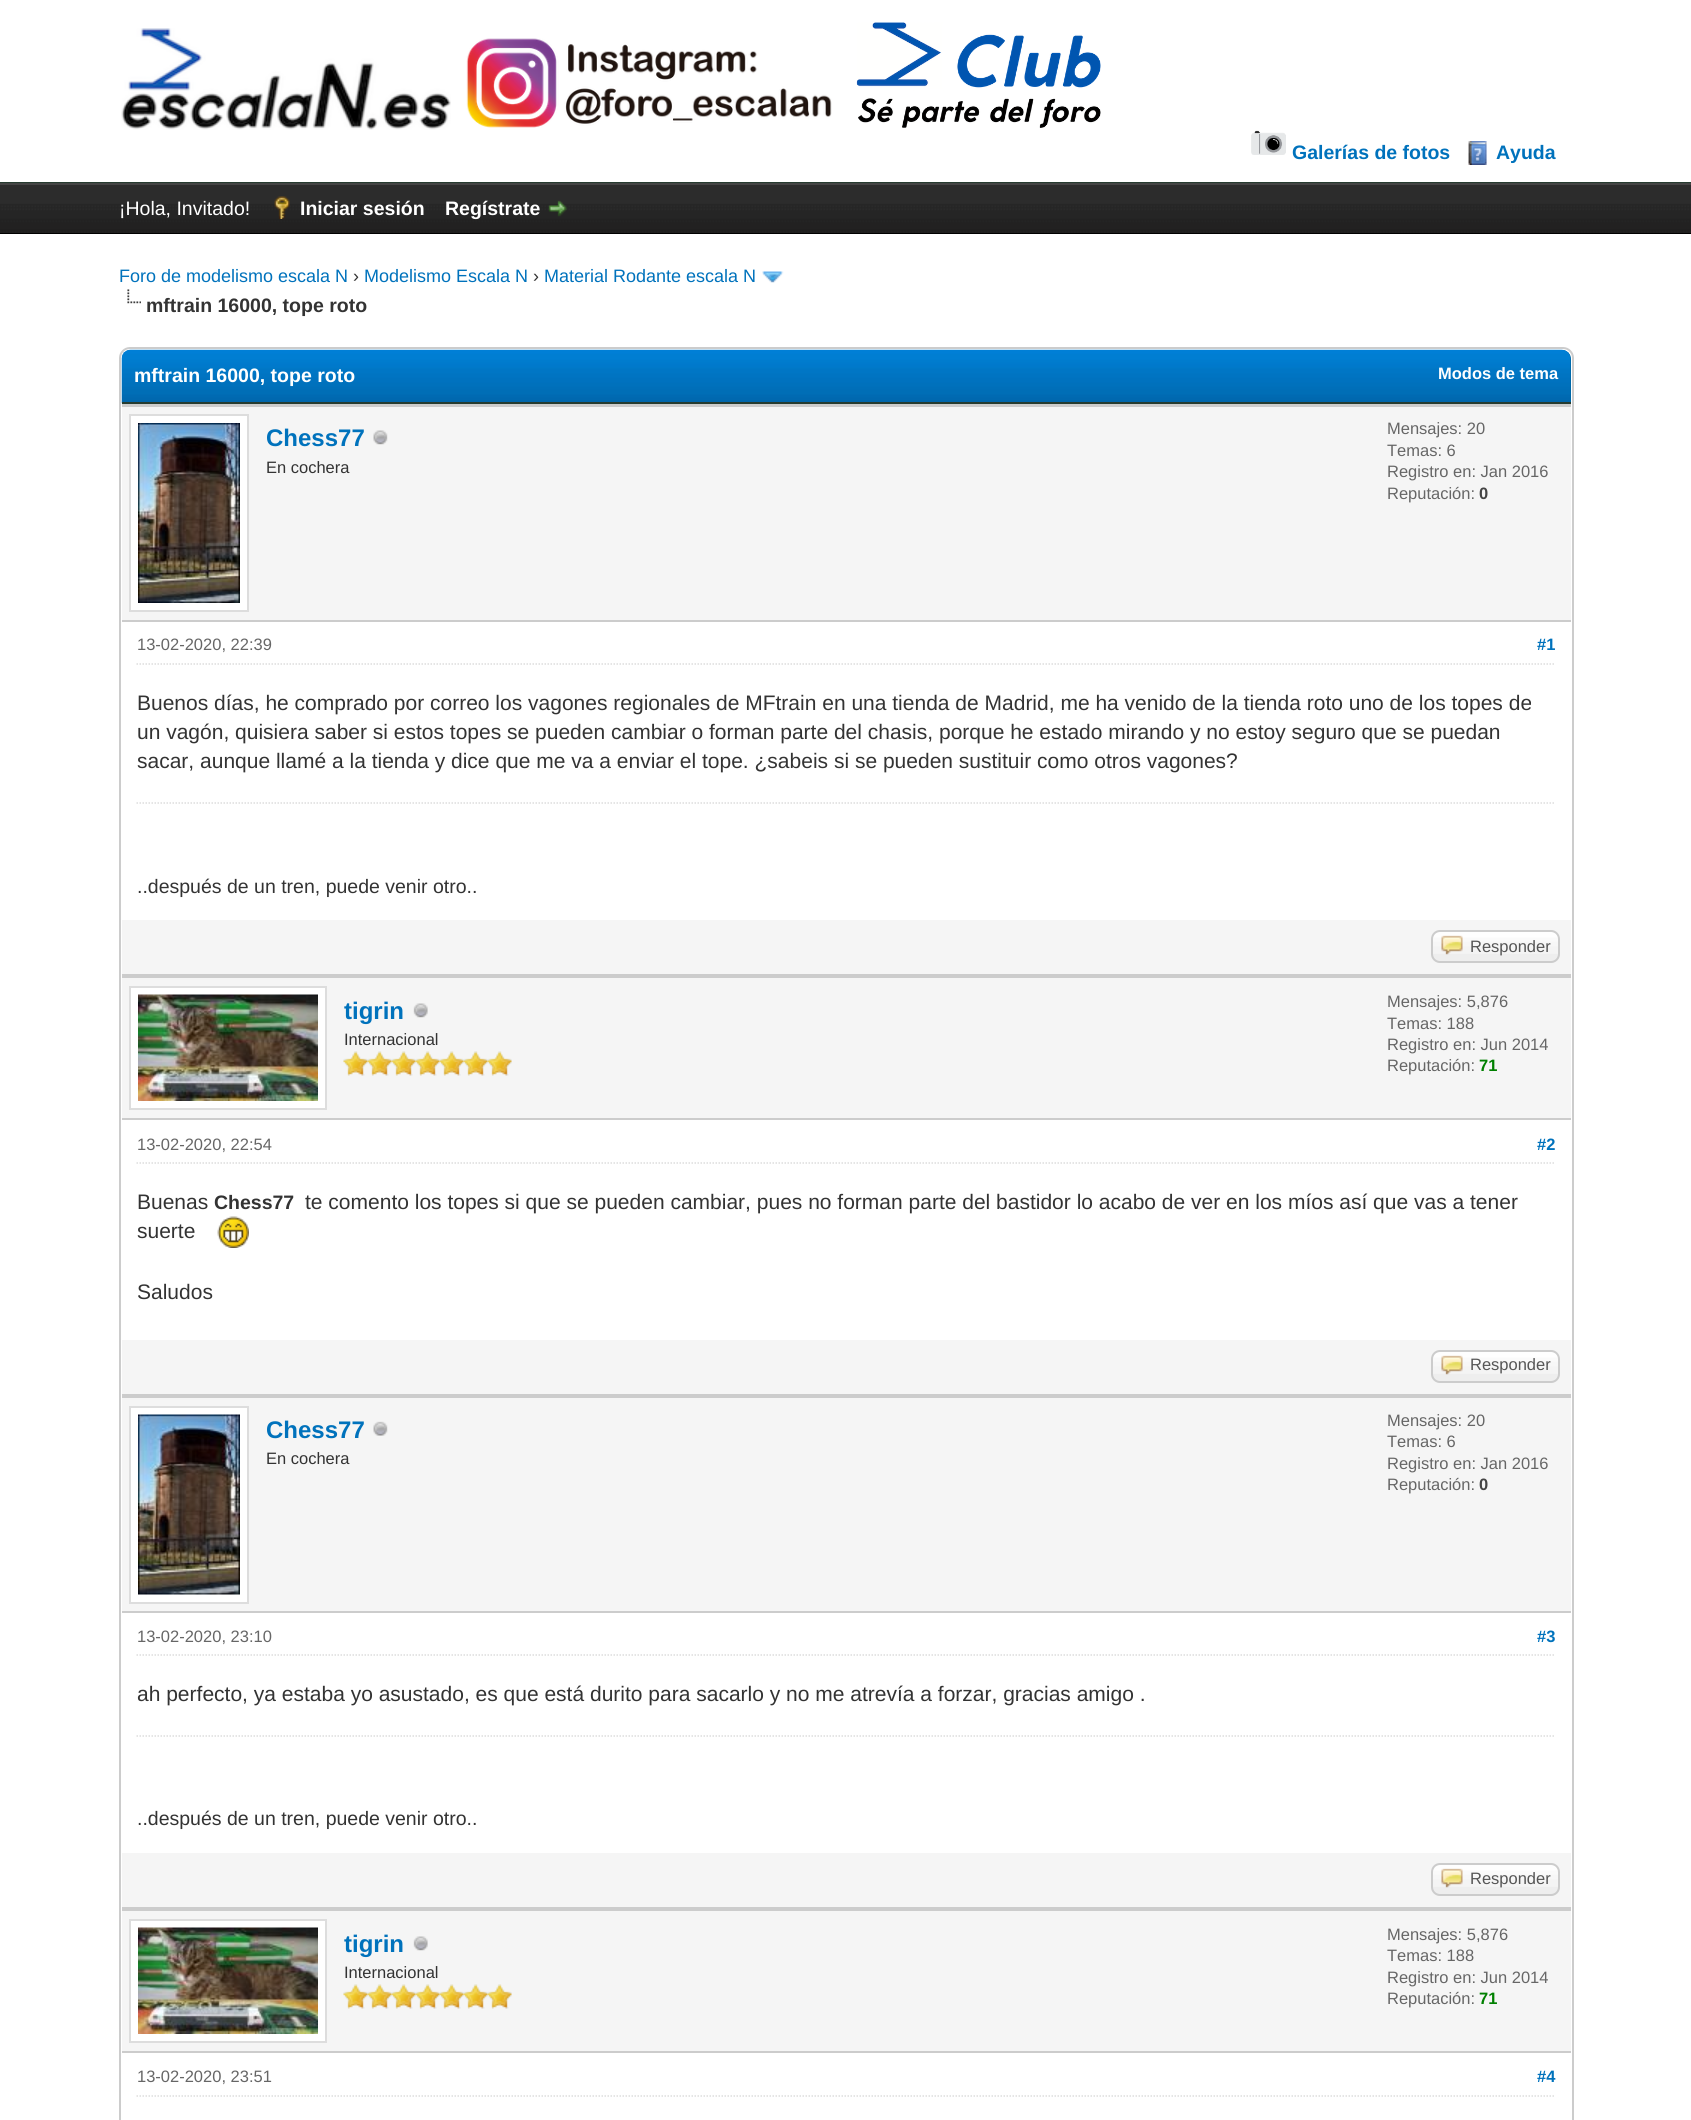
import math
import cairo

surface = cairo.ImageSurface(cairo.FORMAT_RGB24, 1691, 2120)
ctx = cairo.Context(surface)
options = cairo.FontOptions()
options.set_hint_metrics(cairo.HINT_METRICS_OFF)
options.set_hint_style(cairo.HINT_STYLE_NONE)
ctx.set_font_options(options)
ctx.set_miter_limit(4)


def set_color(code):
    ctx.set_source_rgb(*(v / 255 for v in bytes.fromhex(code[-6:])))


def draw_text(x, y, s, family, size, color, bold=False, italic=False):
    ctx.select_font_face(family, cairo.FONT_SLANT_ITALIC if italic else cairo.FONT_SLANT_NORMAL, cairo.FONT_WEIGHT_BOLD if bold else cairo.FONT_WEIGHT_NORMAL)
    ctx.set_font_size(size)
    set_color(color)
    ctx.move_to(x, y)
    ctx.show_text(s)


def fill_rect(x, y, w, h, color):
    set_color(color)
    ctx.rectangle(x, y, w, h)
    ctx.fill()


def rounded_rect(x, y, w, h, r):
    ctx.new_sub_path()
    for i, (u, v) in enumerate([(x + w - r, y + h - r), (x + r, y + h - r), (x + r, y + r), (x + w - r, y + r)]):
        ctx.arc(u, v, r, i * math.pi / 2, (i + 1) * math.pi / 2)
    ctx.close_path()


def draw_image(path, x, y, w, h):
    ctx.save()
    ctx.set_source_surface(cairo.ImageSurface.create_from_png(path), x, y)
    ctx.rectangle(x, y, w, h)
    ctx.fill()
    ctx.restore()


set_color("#ffffff")
ctx.paint()
fill_rect(0, 182, 1691, 1, "#263c30")
draw_image("assets/img1.png", 121, 28, 330, 102)
draw_image("assets/img2.png", 466, 38, 366, 90)
draw_image("assets/img3.png", 856, 22, 245, 106)
draw_image("assets/img4.png", 1251, 130, 35, 25)
draw_text(1292, 159, "Galerías de fotos", "Liberation Sans", 19.5, "#0072bc", bold=True)
draw_image("assets/img5.png", 1468, 141, 19, 24)
draw_text(1496, 159, "Ayuda", "Liberation Sans", 19.5, "#0072bc", bold=True)
draw_image("assets/img6.png", 0, 185, 1691, 48)
fill_rect(0, 183, 1691, 2, "#444444")
fill_rect(0, 233, 1691, 1, "#000000")
draw_text(119, 215, "¡Hola, Invitado!", "Liberation Sans", 19.5, "#ffffff")
draw_image("assets/img7.png", 274, 196, 16, 23)
draw_text(300, 215, "Iniciar sesión", "Liberation Sans", 19.5, "#ffffff", bold=True)
draw_text(445, 215, "Regístrate", "Liberation Sans", 19.5, "#ffffff", bold=True)
draw_image("assets/img8.png", 548, 200, 20, 17)
draw_text(119, 282, "Foro de modelismo escala N", "Liberation Sans", 18, "#0072bc")
draw_text(353, 282, "›", "Liberation Sans", 18, "#333333")
draw_text(364, 282, "Modelismo Escala N", "Liberation Sans", 18, "#0072bc")
draw_text(533, 282, "›", "Liberation Sans", 18, "#333333")
draw_text(544, 282, "Material Rodante escala N", "Liberation Sans", 18, "#0072bc")
draw_image("assets/img9.png", 762, 271, 22, 12)
draw_image("assets/img10.png", 127, 289, 14, 15)
draw_text(146, 312, "mftrain 16000, tope roto", "Liberation Sans", 19.5, "#333333", bold=True)
rounded_rect(120, 348, 1453, 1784, 10)
set_color("#cccccc")
ctx.stroke()
set_color("#0066a2")
ctx.new_path()
ctx.move_to(131, 350)
ctx.line_to(1562, 350)
ctx.curve_to(1567, 350, 1571, 354, 1571, 359)
ctx.line_to(1571, 404)
ctx.line_to(122, 404)
ctx.line_to(122, 359)
ctx.curve_to(122, 354, 126, 350, 131, 350)
ctx.close_path()
ctx.fill()
draw_image("assets/img11.png", 121, 349, 1450, 55)
fill_rect(122, 402, 1449, 2, "#263c30")
draw_text(134, 382, "mftrain 16000, tope roto", "Liberation Sans", 19.5, "#ffffff", bold=True)
draw_text(1438, 379, "Modos de tema", "Liberation Sans", 16.5, "#ffffff", bold=True)
fill_rect(122, 407, 1449, 213, "#f5f5f5")
fill_rect(122, 404, 1449, 3, "#cccccc")
fill_rect(122, 620, 1449, 2, "#cccccc")
set_color("#ffffff")
ctx.rectangle(130, 415, 118, 196)
ctx.fill_preserve()
set_color("#dddddd")
ctx.stroke()
draw_image("assets/img12.png", 138, 423, 102, 180)
draw_text(266, 446, "Chess77", "Liberation Sans", 24, "#0072bc", bold=True)
draw_image("assets/img13.png", 373, 430, 15, 15)
draw_text(266, 473, "En cochera", "Liberation Sans", 16.5, "#333333")
draw_text(1387, 434, "Mensajes: 20", "Liberation Sans", 16.5, "#666666")
draw_text(1387, 456, "Temas: 6", "Liberation Sans", 16.5, "#666666")
draw_text(1387, 477, "Registro en: Jan 2016", "Liberation Sans", 16.5, "#666666")
draw_text(1387, 499, "Reputación:", "Liberation Sans", 16.5, "#666666")
draw_text(1479, 499, "0", "Liberation Sans", 16.5, "#444444", bold=True)
ctx.new_path()
ctx.move_to(136.5, 664)
ctx.line_to(1555.5, 664)
set_color("#dddddd")
ctx.set_line_width(1.5)
ctx.set_dash([1.5, 1.5])
ctx.stroke()
draw_text(137, 650, "13-02-2020, 22:39", "Liberation Sans", 16.5, "#666666")
draw_text(1537, 650, "#1", "Liberation Sans", 16.5, "#0072bc", bold=True)
draw_text(137, 710, "Buenos días, he comprado por correo los vagones regionales de MFtrain en una tienda de Madrid, me ha venido de la tienda roto uno de los topes de", "Liberation Sans", 21, "#333333")
draw_text(137, 739, "un vagón, quisiera saber si estos topes se pueden cambiar o forman parte del chasis, porque he estado mirando y no estoy seguro que se puedan", "Liberation Sans", 21, "#333333")
draw_text(137, 768, "sacar, aunque llamé a la tienda y dice que me va a enviar el tope. ¿sabeis si se pueden sustituir como otros vagones?", "Liberation Sans", 21, "#333333")
ctx.new_path()
ctx.move_to(136.5, 803)
ctx.line_to(1555.5, 803)
set_color("#dddddd")
ctx.stroke()
draw_text(137, 893, "..después de un tren, puede venir otro..", "Liberation Sans", 19.5, "#333333")
fill_rect(122, 920, 1449, 54, "#f5f5f5")
fill_rect(122, 974, 1449, 4, "#cccccc")
set_color("#eeeeee")
rounded_rect(1431, 930, 129, 33, 9)
ctx.fill()
draw_image("assets/img14.png", 1431, 931, 129, 23)
rounded_rect(1432, 931, 127, 31, 8)
set_color("#cccccc")
ctx.set_line_width(2)
ctx.set_dash([])
ctx.stroke()
draw_image("assets/img15.png", 1441, 935, 22, 20)
draw_text(1470, 952, "Responder", "Liberation Sans", 16.5, "#555555")
fill_rect(122, 978, 1449, 140, "#f5f5f5")
fill_rect(122, 1118, 1449, 2, "#cccccc")
set_color("#ffffff")
ctx.rectangle(130, 987, 196, 122)
ctx.fill_preserve()
set_color("#dddddd")
ctx.stroke()
draw_image("assets/img16.png", 138, 994, 180, 107)
draw_text(344, 1019, "tigrin", "Liberation Sans", 24, "#0072bc", bold=True)
draw_image("assets/img17.png", 413, 1003, 15, 15)
draw_text(344, 1045, "Internacional", "Liberation Sans", 16.5, "#333333")
draw_image("assets/img18.png", 343, 1051, 25, 25)
draw_image("assets/img19.png", 367, 1051, 25, 25)
draw_image("assets/img19.png", 391, 1051, 25, 25)
draw_image("assets/img19.png", 415, 1051, 25, 25)
draw_image("assets/img19.png", 439, 1051, 25, 25)
draw_image("assets/img20.png", 463, 1051, 25, 25)
draw_image("assets/img20.png", 487, 1051, 25, 25)
draw_text(1387, 1007, "Mensajes: 5,876", "Liberation Sans", 16.5, "#666666")
draw_text(1387, 1029, "Temas: 188", "Liberation Sans", 16.5, "#666666")
draw_text(1387, 1050, "Registro en: Jun 2014", "Liberation Sans", 16.5, "#666666")
draw_text(1387, 1071, "Reputación:", "Liberation Sans", 16.5, "#666666")
draw_text(1479, 1071, "71", "Liberation Sans", 16.5, "#008000", bold=True)
ctx.new_path()
ctx.move_to(136.5, 1163)
ctx.line_to(1555.5, 1163)
set_color("#dddddd")
ctx.set_line_width(1.5)
ctx.set_dash([1.5, 1.5])
ctx.stroke()
draw_text(137, 1150, "13-02-2020, 22:54", "Liberation Sans", 16.5, "#666666")
draw_text(1537, 1150, "#2", "Liberation Sans", 16.5, "#0072bc", bold=True)
draw_text(137, 1209, "Buenas", "Liberation Sans", 21, "#333333")
draw_text(214, 1209, "Chess77", "Liberation Sans", 19.5, "#333333", bold=True)
draw_text(305, 1209, "te comento los topes si que se pueden cambiar, pues no forman parte del bastidor lo acabo de ver en los míos así que vas a tener", "Liberation Sans", 21, "#333333")
draw_text(137, 1238, "suerte", "Liberation Sans", 21, "#333333")
draw_image("assets/img21.png", 217, 1216, 32, 32)
draw_text(137, 1299, "Saludos", "Liberation Sans", 21, "#333333")
fill_rect(122, 1340, 1449, 54, "#f5f5f5")
fill_rect(122, 1394, 1449, 4, "#cccccc")
set_color("#eeeeee")
rounded_rect(1431, 1350, 129, 33, 9)
ctx.fill()
draw_image("assets/img14.png", 1431, 1351, 129, 23)
rounded_rect(1432, 1351, 127, 31, 8)
set_color("#cccccc")
ctx.set_line_width(2)
ctx.set_dash([])
ctx.stroke()
draw_image("assets/img15.png", 1441, 1355, 22, 20)
draw_text(1470, 1370, "Responder", "Liberation Sans", 16.5, "#555555")
fill_rect(122, 1398, 1449, 213, "#f5f5f5")
fill_rect(122, 1611, 1449, 2, "#cccccc")
set_color("#ffffff")
ctx.rectangle(130, 1407, 118, 196)
ctx.fill_preserve()
set_color("#dddddd")
ctx.stroke()
draw_image("assets/img22.png", 138, 1414, 102, 181)
draw_text(266, 1438, "Chess77", "Liberation Sans", 24, "#0072bc", bold=True)
draw_image("assets/img23.png", 373, 1421, 15, 15)
draw_text(266, 1464, "En cochera", "Liberation Sans", 16.5, "#333333")
draw_text(1387, 1426, "Mensajes: 20", "Liberation Sans", 16.5, "#666666")
draw_text(1387, 1447, "Temas: 6", "Liberation Sans", 16.5, "#666666")
draw_text(1387, 1469, "Registro en: Jan 2016", "Liberation Sans", 16.5, "#666666")
draw_text(1387, 1490, "Reputación:", "Liberation Sans", 16.5, "#666666")
draw_text(1479, 1490, "0", "Liberation Sans", 16.5, "#444444", bold=True)
ctx.new_path()
ctx.move_to(136.5, 1655)
ctx.line_to(1555.5, 1655)
set_color("#dddddd")
ctx.set_line_width(1.5)
ctx.set_dash([1.5, 1.5])
ctx.stroke()
draw_text(137, 1642, "13-02-2020, 23:10", "Liberation Sans", 16.5, "#666666")
draw_text(1537, 1642, "#3", "Liberation Sans", 16.5, "#0072bc", bold=True)
draw_text(137, 1701, "ah perfecto, ya estaba yo asustado, es que está durito para sacarlo y no me atrevía a forzar, gracias amigo .", "Liberation Sans", 21, "#333333")
ctx.new_path()
ctx.move_to(136.5, 1736)
ctx.line_to(1555.5, 1736)
set_color("#dddddd")
ctx.stroke()
draw_text(137, 1825, "..después de un tren, puede venir otro..", "Liberation Sans", 19.5, "#333333")
fill_rect(122, 1853, 1449, 54, "#f5f5f5")
fill_rect(122, 1907, 1449, 4, "#cccccc")
set_color("#eeeeee")
rounded_rect(1431, 1863, 129, 33, 9)
ctx.fill()
draw_image("assets/img14.png", 1431, 1864, 129, 23)
rounded_rect(1432, 1864, 127, 31, 8)
set_color("#cccccc")
ctx.set_line_width(2)
ctx.set_dash([])
ctx.stroke()
draw_image("assets/img15.png", 1441, 1868, 22, 20)
draw_text(1470, 1884, "Responder", "Liberation Sans", 16.5, "#555555")
fill_rect(122, 1911, 1449, 140, "#f5f5f5")
fill_rect(122, 2051, 1449, 2, "#cccccc")
set_color("#ffffff")
ctx.rectangle(130, 1920, 196, 122)
ctx.fill_preserve()
set_color("#dddddd")
ctx.stroke()
draw_image("assets/img16.png", 138, 1927, 180, 107)
draw_text(344, 1952, "tigrin", "Liberation Sans", 24, "#0072bc", bold=True)
draw_image("assets/img17.png", 413, 1936, 15, 15)
draw_text(344, 1978, "Internacional", "Liberation Sans", 16.5, "#333333")
draw_image("assets/img18.png", 343, 1984, 25, 25)
draw_image("assets/img19.png", 367, 1984, 25, 25)
draw_image("assets/img19.png", 391, 1984, 25, 25)
draw_image("assets/img19.png", 415, 1984, 25, 25)
draw_image("assets/img19.png", 439, 1984, 25, 25)
draw_image("assets/img20.png", 463, 1984, 25, 25)
draw_image("assets/img20.png", 487, 1984, 25, 25)
draw_text(1387, 1940, "Mensajes: 5,876", "Liberation Sans", 16.5, "#666666")
draw_text(1387, 1961, "Temas: 188", "Liberation Sans", 16.5, "#666666")
draw_text(1387, 1983, "Registro en: Jun 2014", "Liberation Sans", 16.5, "#666666")
draw_text(1387, 2004, "Reputación:", "Liberation Sans", 16.5, "#666666")
draw_text(1479, 2004, "71", "Liberation Sans", 16.5, "#008000", bold=True)
ctx.new_path()
ctx.move_to(136.5, 2096)
ctx.line_to(1555.5, 2096)
set_color("#dddddd")
ctx.set_line_width(1.5)
ctx.set_dash([1.5, 1.5])
ctx.stroke()
draw_text(137, 2082, "13-02-2020, 23:51", "Liberation Sans", 16.5, "#666666")
draw_text(1537, 2082, "#4", "Liberation Sans", 16.5, "#0072bc", bold=True)
surface.write_to_png("output.png")
